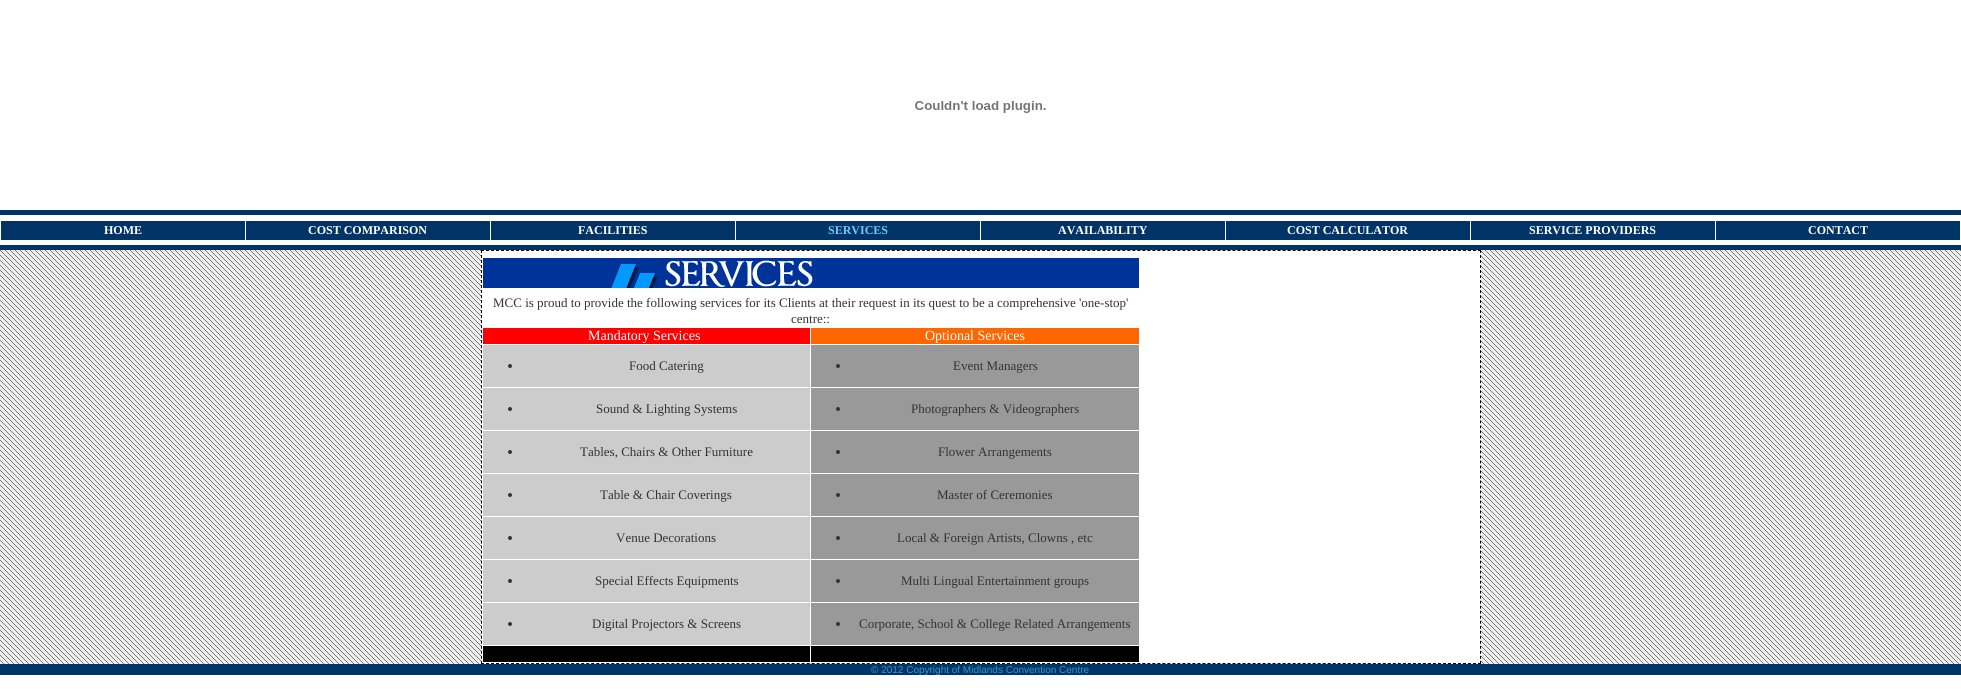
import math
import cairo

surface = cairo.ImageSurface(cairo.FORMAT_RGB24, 1961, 696)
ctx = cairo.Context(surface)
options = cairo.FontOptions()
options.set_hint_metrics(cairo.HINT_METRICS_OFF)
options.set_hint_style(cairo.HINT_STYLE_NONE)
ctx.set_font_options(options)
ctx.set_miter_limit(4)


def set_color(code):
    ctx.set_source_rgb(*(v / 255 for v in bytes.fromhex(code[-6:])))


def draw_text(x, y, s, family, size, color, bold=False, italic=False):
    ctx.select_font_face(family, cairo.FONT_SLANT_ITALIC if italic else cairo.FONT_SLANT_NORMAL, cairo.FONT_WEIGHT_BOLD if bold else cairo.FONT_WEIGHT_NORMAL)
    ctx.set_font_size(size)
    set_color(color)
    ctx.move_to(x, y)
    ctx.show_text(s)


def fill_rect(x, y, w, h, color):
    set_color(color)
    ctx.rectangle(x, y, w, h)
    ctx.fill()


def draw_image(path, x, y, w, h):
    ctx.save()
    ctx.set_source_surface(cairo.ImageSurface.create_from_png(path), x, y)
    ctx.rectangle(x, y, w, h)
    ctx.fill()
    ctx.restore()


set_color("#ffffff")
ctx.paint()
draw_image("assets/img1.png", 915, 101, 131, 12)
fill_rect(0, 210, 1961, 5, "#003466")
fill_rect(1, 221, 244, 19, "#003466")
draw_text(104, 234, "HOME", "Liberation Serif", 12, "#ffffff", bold=True)
fill_rect(246, 221, 244, 19, "#003466")
draw_text(308, 234, "COST COMPARISON", "Liberation Serif", 12, "#ffffff", bold=True)
fill_rect(491, 221, 244, 19, "#003466")
draw_text(578, 234, "FACILITIES", "Liberation Serif", 12, "#ffffff", bold=True)
fill_rect(736, 221, 244, 19, "#003466")
draw_text(828, 234, "SERVICES", "Liberation Serif", 12, "#66ccff", bold=True)
fill_rect(981, 221, 244, 19, "#003466")
draw_text(1058, 234, "AVAILABILITY", "Liberation Serif", 12, "#ffffff", bold=True)
fill_rect(1226, 221, 244, 19, "#003466")
draw_text(1287, 234, "COST CALCULATOR", "Liberation Serif", 12, "#ffffff", bold=True)
fill_rect(1471, 221, 244, 19, "#003466")
draw_text(1529, 234, "SERVICE PROVIDERS", "Liberation Serif", 12, "#ffffff", bold=True)
fill_rect(1716, 221, 244, 19, "#003466")
draw_text(1808, 234, "CONTACT", "Liberation Serif", 12, "#ffffff", bold=True)
fill_rect(0, 245, 1961, 5, "#003466")
draw_image("assets/img2.png", 0, 250, 1961, 414)
fill_rect(481, 250, 1000, 414, "#ffffff")
ctx.new_path()
ctx.move_to(481, 250.5)
ctx.line_to(1481, 250.5)
set_color("#000000")
ctx.set_line_width(1)
ctx.set_dash([3, 2.01])
ctx.stroke()
ctx.new_path()
ctx.move_to(1480.5, 250)
ctx.line_to(1480.5, 664)
ctx.stroke()
ctx.new_path()
ctx.move_to(481, 663.5)
ctx.line_to(1481, 663.5)
ctx.stroke()
ctx.new_path()
ctx.move_to(481.5, 250)
ctx.line_to(481.5, 664)
ctx.stroke()
fill_rect(483, 258, 656, 30, "#003399")
draw_image("assets/img3.png", 611, 260, 202, 28)
draw_text(493, 307, "MCC is proud to provide the following services for its Clients at their request in its quest to be a comprehensive 'one-stop'", "Liberation Serif", 13, "#333333")
draw_text(791, 323, "centre::", "Liberation Serif", 13, "#333333")
fill_rect(483, 328, 327, 16, "#ff0000")
draw_text(588, 340, "Mandatory Services", "Liberation Serif", 14, "#ffffff")
fill_rect(811, 328, 328, 16, "#ff6600")
draw_text(925, 340, "Optional Services", "Liberation Serif", 14, "#ffffff")
fill_rect(483, 345, 327, 42, "#cccccc")
set_color("#333333")
ctx.new_path()
ctx.arc(510, 366, 2, 0, 2 * math.pi)
ctx.fill()
draw_text(629, 370, "Food Catering", "Liberation Serif", 13, "#333333")
fill_rect(811, 345, 328, 42, "#999999")
set_color("#333333")
ctx.new_path()
ctx.arc(838, 366, 2, 0, 2 * math.pi)
ctx.fill()
draw_text(953, 370, "Event Managers", "Liberation Serif", 13, "#333333")
fill_rect(483, 388, 327, 42, "#cccccc")
set_color("#333333")
ctx.new_path()
ctx.arc(510, 409, 2, 0, 2 * math.pi)
ctx.fill()
draw_text(596, 413, "Sound & Lighting Systems", "Liberation Serif", 13, "#333333")
fill_rect(811, 388, 328, 42, "#999999")
set_color("#333333")
ctx.new_path()
ctx.arc(838, 409, 2, 0, 2 * math.pi)
ctx.fill()
draw_text(911, 413, "Photographers & Videographers", "Liberation Serif", 13, "#333333")
fill_rect(483, 431, 327, 42, "#cccccc")
set_color("#333333")
ctx.new_path()
ctx.arc(510, 452, 2, 0, 2 * math.pi)
ctx.fill()
draw_text(580, 456, "Tables, Chairs & Other Furniture", "Liberation Serif", 13, "#333333")
fill_rect(811, 431, 328, 42, "#999999")
set_color("#333333")
ctx.new_path()
ctx.arc(838, 452, 2, 0, 2 * math.pi)
ctx.fill()
draw_text(938, 456, "Flower Arrangements", "Liberation Serif", 13, "#333333")
fill_rect(483, 474, 327, 42, "#cccccc")
set_color("#333333")
ctx.new_path()
ctx.arc(510, 495, 2, 0, 2 * math.pi)
ctx.fill()
draw_text(600, 499, "Table & Chair Coverings", "Liberation Serif", 13, "#333333")
fill_rect(811, 474, 328, 42, "#999999")
set_color("#333333")
ctx.new_path()
ctx.arc(838, 495, 2, 0, 2 * math.pi)
ctx.fill()
draw_text(937, 499, "Master of Ceremonies", "Liberation Serif", 13, "#333333")
fill_rect(483, 517, 327, 42, "#cccccc")
set_color("#333333")
ctx.new_path()
ctx.arc(510, 538, 2, 0, 2 * math.pi)
ctx.fill()
draw_text(616, 542, "Venue Decorations", "Liberation Serif", 13, "#333333")
fill_rect(811, 517, 328, 42, "#999999")
set_color("#333333")
ctx.new_path()
ctx.arc(838, 538, 2, 0, 2 * math.pi)
ctx.fill()
draw_text(897, 542, "Local & Foreign Artists, Clowns , etc", "Liberation Serif", 13, "#333333")
fill_rect(483, 560, 327, 42, "#cccccc")
set_color("#333333")
ctx.new_path()
ctx.arc(510, 581, 2, 0, 2 * math.pi)
ctx.fill()
draw_text(595, 585, "Special Effects Equipments", "Liberation Serif", 13, "#333333")
fill_rect(811, 560, 328, 42, "#999999")
set_color("#333333")
ctx.new_path()
ctx.arc(838, 581, 2, 0, 2 * math.pi)
ctx.fill()
draw_text(901, 585, "Multi Lingual Entertainment groups", "Liberation Serif", 13, "#333333")
fill_rect(483, 603, 327, 42, "#cccccc")
set_color("#333333")
ctx.new_path()
ctx.arc(510, 624, 2, 0, 2 * math.pi)
ctx.fill()
draw_text(592, 628, "Digital Projectors & Screens", "Liberation Serif", 13, "#333333")
fill_rect(811, 603, 328, 42, "#999999")
set_color("#333333")
ctx.new_path()
ctx.arc(838, 624, 2, 0, 2 * math.pi)
ctx.fill()
draw_text(859, 628, "Corporate, School & College Related Arrangements", "Liberation Serif", 13, "#333333")
fill_rect(483, 646, 327, 16, "#000000")
fill_rect(811, 646, 328, 16, "#000000")
fill_rect(0, 664, 1961, 11, "#003466")
draw_text(871, 673, "© 2012 Copyright of Midlands Convention Centre", "Liberation Sans", 10, "#3399cc")
surface.write_to_png("output.png")
